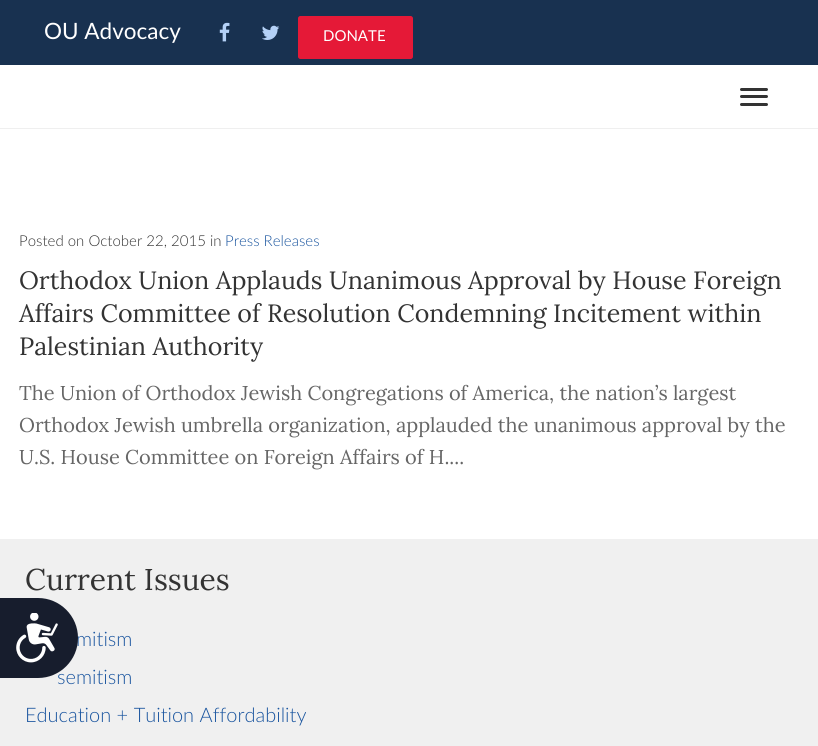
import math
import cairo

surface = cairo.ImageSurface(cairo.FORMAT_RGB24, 818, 746)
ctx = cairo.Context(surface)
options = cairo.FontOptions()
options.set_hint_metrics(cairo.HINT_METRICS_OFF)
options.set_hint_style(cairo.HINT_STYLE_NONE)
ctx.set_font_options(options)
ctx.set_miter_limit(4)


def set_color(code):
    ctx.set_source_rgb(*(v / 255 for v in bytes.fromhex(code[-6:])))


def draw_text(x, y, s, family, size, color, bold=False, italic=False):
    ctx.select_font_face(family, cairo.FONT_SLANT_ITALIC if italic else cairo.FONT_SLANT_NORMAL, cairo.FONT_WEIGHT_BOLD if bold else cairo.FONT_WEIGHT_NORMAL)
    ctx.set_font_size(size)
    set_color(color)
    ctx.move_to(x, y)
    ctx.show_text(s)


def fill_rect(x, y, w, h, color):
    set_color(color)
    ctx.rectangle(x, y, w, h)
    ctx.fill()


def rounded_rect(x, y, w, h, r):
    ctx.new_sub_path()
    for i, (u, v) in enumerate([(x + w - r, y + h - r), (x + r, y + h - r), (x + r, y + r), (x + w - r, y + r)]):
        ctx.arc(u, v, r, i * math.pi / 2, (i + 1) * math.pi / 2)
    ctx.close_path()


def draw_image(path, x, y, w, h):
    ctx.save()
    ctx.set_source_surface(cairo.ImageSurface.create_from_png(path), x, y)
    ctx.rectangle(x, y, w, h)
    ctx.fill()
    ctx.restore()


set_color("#ffffff")
ctx.paint()
fill_rect(0, 0, 818, 65, "#183150")
draw_text(44, 39, "OU Advocacy", "Lato", 22.5, "#ffffff")
draw_image("assets/img1.png", 219, 22, 11, 20)
draw_image("assets/img2.png", 262, 25, 18, 15)
set_color("#e51937")
rounded_rect(298.5, 16.5, 114, 42, 2)
ctx.fill_preserve()
ctx.set_line_width(1)
ctx.stroke()
draw_text(323, 41, "DONATE", "Lato", 15, "#ffffff")
fill_rect(0, 128, 818, 1, "#efefef")
set_color("#333333")
rounded_rect(740, 88, 28, 3, 1.5)
ctx.fill()
rounded_rect(740, 95, 28, 3, 1.5)
ctx.fill()
rounded_rect(740, 103, 28, 3, 1.5)
ctx.fill()
draw_text(19, 246, "Posted on October 22, 2015 in", "Lato Light", 15, "#333333")
draw_text(225, 246, "Press Releases", "Lato Light", 15, "#1a559f")
draw_text(19, 289, "Orthodox Union Applauds Unanimous Approval by House Foreign", "Lora", 25, "#333333")
draw_text(19, 322, "Affairs Committee of Resolution Condemning Incitement within", "Lora", 25, "#333333")
draw_text(19, 355, "Palestinian Authority", "Lora", 25, "#333333")
draw_text(19, 400, "The Union of Orthodox Jewish Congregations of America, the nation’s largest", "Lora", 20, "#666666")
draw_text(19, 432, "Orthodox Jewish umbrella organization, applauded the unanimous approval by the", "Lora", 20, "#666666")
draw_text(19, 464, "U.S. House Committee on Foreign Affairs of H....", "Lora", 20, "#666666")
fill_rect(0, 539, 818, 207, "#f0f0f0")
draw_text(25, 590, "Current Issues", "Lora", 30, "#333333")
draw_text(76, 646, "mitism", "Lato Light", 20, "#1a559f")
draw_text(57, 684, "semitism", "Lato Light", 20, "#1a559f")
draw_text(25, 722, "Education + Tuition Affordability", "Lato Light", 20, "#1a559f")
set_color("#171d2d")
ctx.new_path()
ctx.move_to(0, 598)
ctx.line_to(38, 598)
ctx.curve_to(60, 598, 78, 616, 78, 638)
ctx.curve_to(78, 660, 60, 678, 38, 678)
ctx.line_to(0, 678)
ctx.close_path()
ctx.fill()
draw_image("assets/img3.png", 16, 613, 42, 50)
surface.write_to_png("output.png")
